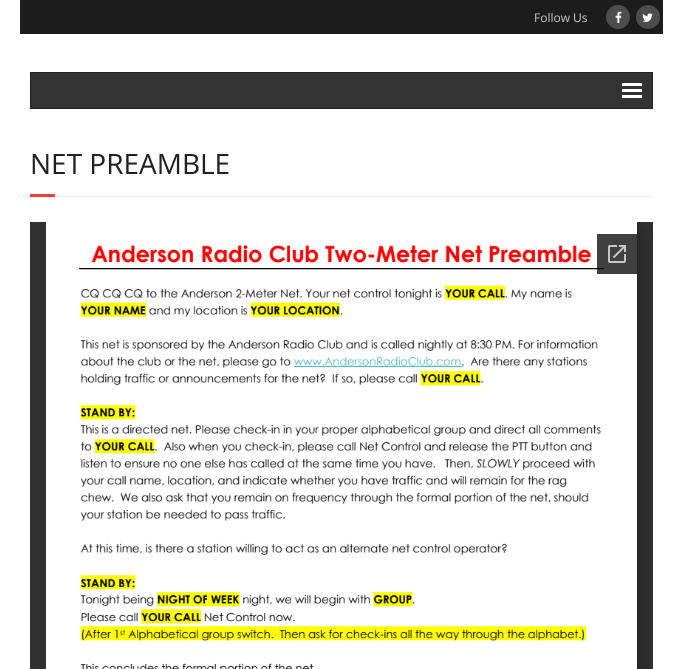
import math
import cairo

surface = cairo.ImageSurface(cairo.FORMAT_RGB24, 683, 669)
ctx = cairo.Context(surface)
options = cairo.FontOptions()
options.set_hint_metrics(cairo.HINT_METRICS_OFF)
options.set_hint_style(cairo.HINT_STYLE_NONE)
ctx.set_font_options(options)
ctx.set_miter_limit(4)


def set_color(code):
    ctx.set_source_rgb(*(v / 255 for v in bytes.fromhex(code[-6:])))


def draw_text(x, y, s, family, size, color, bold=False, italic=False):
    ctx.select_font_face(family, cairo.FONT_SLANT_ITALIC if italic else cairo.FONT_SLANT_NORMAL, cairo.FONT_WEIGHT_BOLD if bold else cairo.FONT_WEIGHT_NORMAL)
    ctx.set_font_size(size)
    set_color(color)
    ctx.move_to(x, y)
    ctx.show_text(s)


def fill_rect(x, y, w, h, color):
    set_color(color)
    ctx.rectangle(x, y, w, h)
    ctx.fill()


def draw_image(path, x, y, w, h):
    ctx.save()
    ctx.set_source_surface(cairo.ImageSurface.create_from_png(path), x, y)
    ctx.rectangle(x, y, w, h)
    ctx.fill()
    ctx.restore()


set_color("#ffffff")
ctx.paint()
fill_rect(20, 0, 643, 34, "#1c1c1c")
draw_text(534, 22, "Follow Us", "Open Sans", 12, "#cccccc")
set_color("#4d4d4d")
ctx.new_path()
ctx.arc(618, 17, 12, 0, 2 * math.pi)
ctx.fill()
draw_image("assets/img1.png", 615, 11, 7, 12)
ctx.arc(648, 17, 12, 0, 2 * math.pi)
ctx.fill()
draw_image("assets/img2.png", 642, 13, 11, 9)
set_color("#333333")
ctx.rectangle(30.5, 72.5, 622, 36)
ctx.fill_preserve()
set_color("#222222")
ctx.set_line_width(1)
ctx.stroke()
fill_rect(622, 83, 20, 3, "#ffffff")
fill_rect(622, 89, 20, 3, "#ffffff")
fill_rect(622, 95, 20, 3, "#ffffff")
draw_text(30, 174, "NET PREAMBLE", "Open Sans", 28, "#202020")
fill_rect(30, 194, 25, 3, "#f33f3f")
fill_rect(55, 196, 598, 1, "#eeeeee")
draw_image("assets/img3.png", 30, 222, 623, 447)
surface.write_to_png("output.png")
